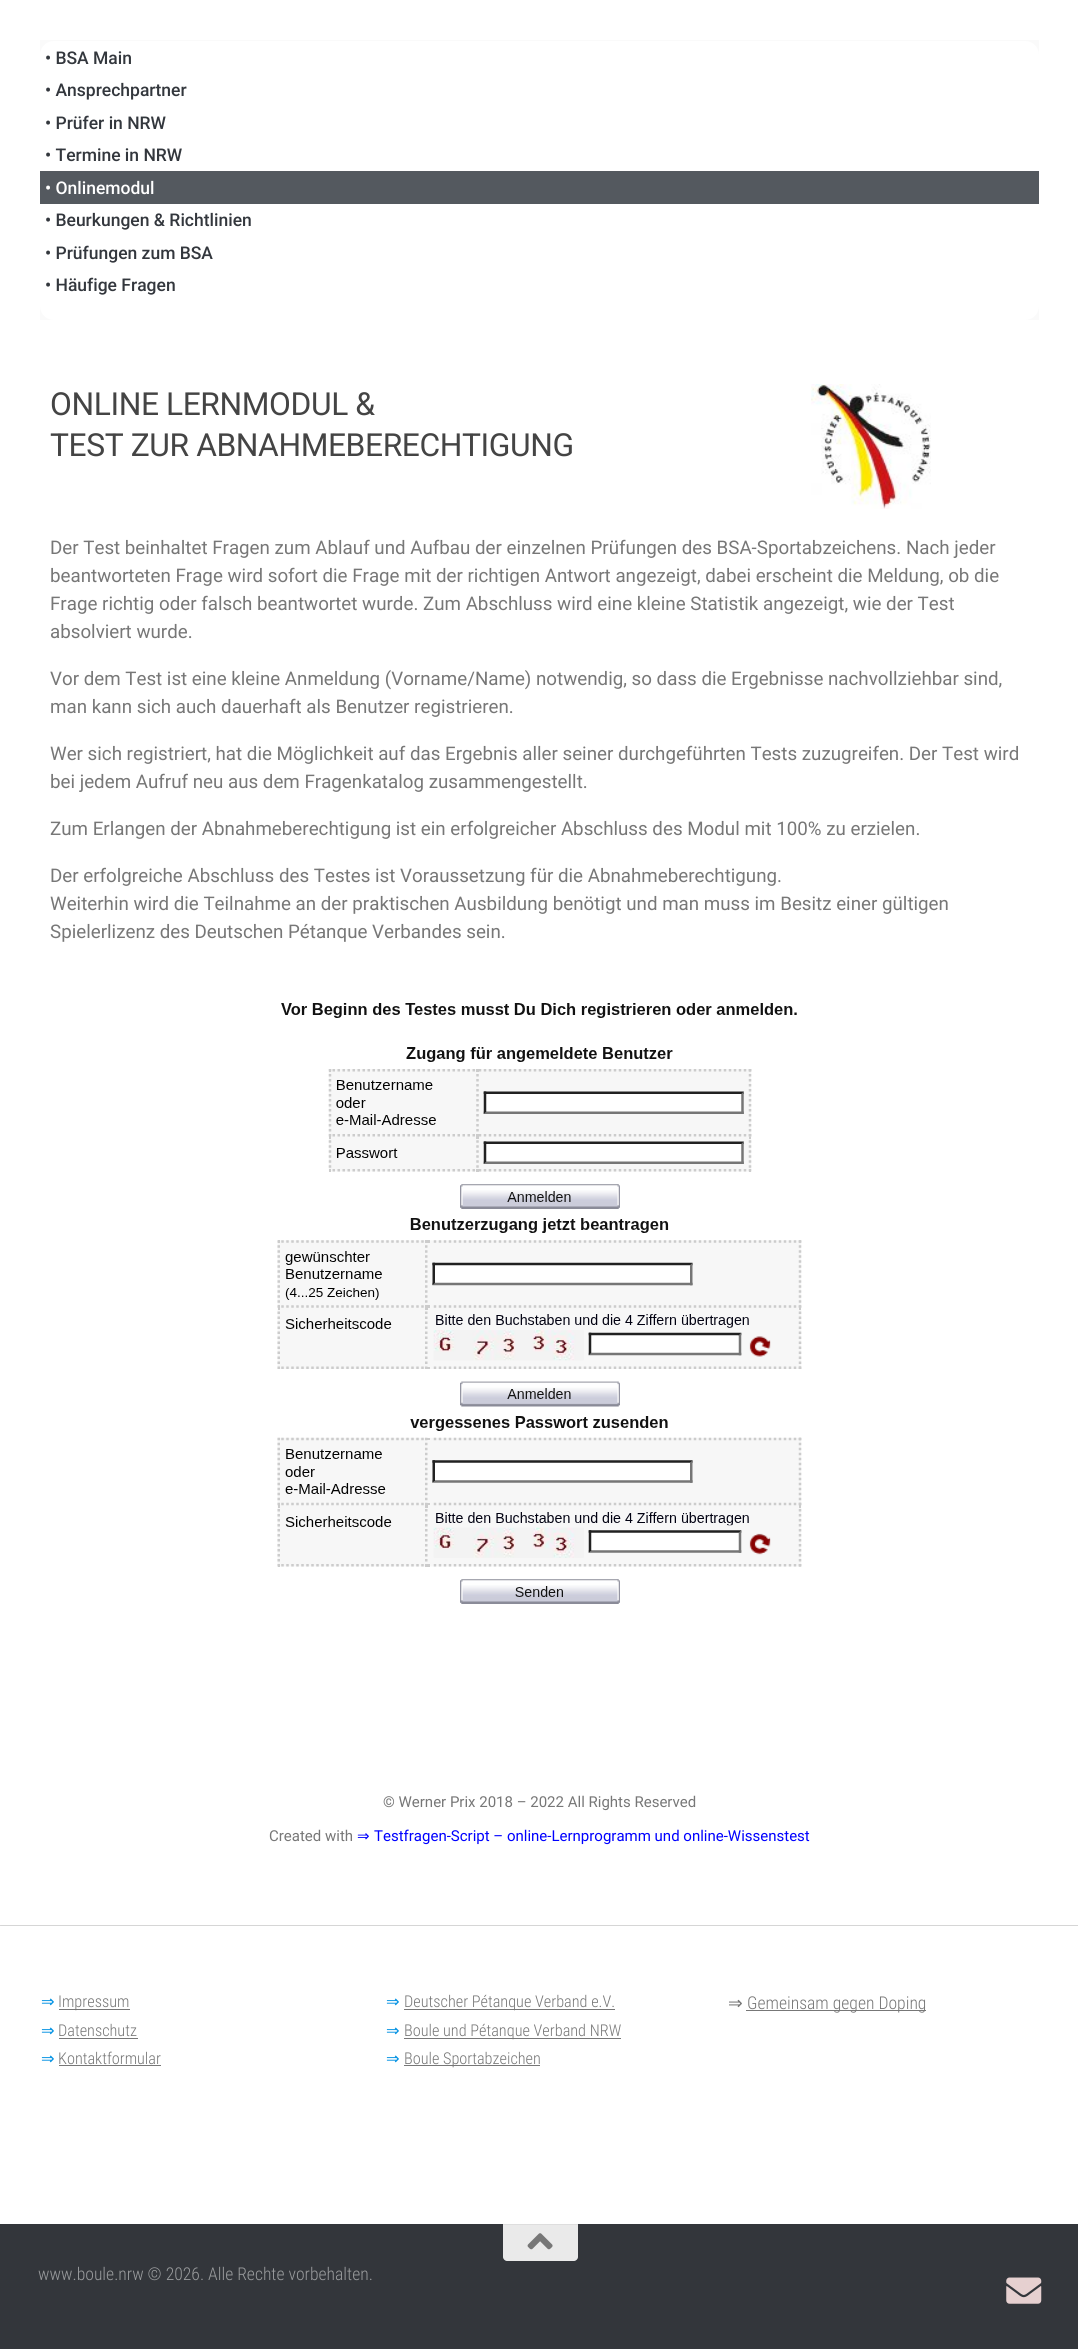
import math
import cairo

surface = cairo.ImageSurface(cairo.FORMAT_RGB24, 1078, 2349)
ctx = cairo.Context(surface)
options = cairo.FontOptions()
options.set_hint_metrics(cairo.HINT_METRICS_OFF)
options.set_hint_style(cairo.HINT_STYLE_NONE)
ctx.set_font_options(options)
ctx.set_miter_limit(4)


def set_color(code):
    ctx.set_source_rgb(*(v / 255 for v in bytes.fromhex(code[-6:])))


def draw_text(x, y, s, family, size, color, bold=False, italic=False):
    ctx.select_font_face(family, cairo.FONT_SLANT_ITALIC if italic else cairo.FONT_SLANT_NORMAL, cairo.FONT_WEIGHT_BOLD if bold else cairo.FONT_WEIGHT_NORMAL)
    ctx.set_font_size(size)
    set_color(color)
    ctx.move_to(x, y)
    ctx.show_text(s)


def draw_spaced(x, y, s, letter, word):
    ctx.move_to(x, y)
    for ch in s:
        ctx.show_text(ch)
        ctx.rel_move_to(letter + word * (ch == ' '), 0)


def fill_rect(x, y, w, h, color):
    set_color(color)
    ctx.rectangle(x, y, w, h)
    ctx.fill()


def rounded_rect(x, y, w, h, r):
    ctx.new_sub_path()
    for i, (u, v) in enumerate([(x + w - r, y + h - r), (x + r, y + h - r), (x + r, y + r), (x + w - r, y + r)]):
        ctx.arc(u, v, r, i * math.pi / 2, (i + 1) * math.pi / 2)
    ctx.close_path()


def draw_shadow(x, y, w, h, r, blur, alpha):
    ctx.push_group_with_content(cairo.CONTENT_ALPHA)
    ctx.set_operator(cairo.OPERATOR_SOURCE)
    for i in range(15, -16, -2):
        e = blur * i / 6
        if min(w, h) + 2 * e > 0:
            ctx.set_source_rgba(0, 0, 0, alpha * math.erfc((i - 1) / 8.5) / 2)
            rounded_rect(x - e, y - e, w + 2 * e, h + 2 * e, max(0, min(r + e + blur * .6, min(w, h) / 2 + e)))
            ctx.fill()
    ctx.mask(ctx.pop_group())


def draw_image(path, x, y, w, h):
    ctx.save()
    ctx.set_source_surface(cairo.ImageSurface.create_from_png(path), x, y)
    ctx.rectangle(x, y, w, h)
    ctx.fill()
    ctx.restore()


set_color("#eaeaea")
ctx.paint()
set_color("#000000")
draw_shadow(0, -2, 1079, 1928, 0, 0.5, 0.1)
fill_rect(0, 0, 1078, 1925, "#ffffff")
fill_rect(40, 40, 999, 280, "#fafafa")
set_color("#ffffff")
rounded_rect(40, 41, 999, 279, 14)
ctx.fill()
draw_text(45, 64, "• BSA Main", "Roboto Medium", 17.5, "#33373d")
draw_text(45, 96, "• Ansprechpartner", "Roboto Medium", 17.5, "#33373d")
draw_text(45, 129, "• Prüfer in NRW", "Roboto Medium", 17.5, "#33373d")
draw_text(45, 161, "• Termine in NRW", "Roboto Medium", 17.5, "#33373d")
fill_rect(40, 171, 999, 33, "#54595f")
draw_text(45, 194, "• Onlinemodul", "Roboto Medium", 17.5, "#ffffff")
draw_text(45, 226, "• Beurkungen & Richtlinien", "Roboto Medium", 17.5, "#33373d")
draw_text(45, 259, "• Prüfungen zum BSA", "Roboto Medium", 17.5, "#33373d")
draw_text(45, 291, "• Häufige Fragen", "Roboto Medium", 17.5, "#33373d")
ctx.select_font_face("Roboto")
ctx.set_font_size(31.75)
set_color("#444444")
draw_spaced(50, 415, "ONLINE LERNMODUL &", -0.4, 0)
draw_spaced(50, 456, "TEST ZUR ABNAHMEBERECHTIGUNG", -0.4, 0)
draw_image("assets/img1.png", 811, 384, 120, 125)
draw_text(50, 554, "Der Test beinhaltet Fragen zum Ablauf und Aufbau der einzelnen Prüfungen des BSA-Sportabzeichens. Nach jeder", "Roboto", 18.75, "#777777")
draw_text(50, 582, "beantworteten Frage wird sofort die Frage mit der richtigen Antwort angezeigt, dabei erscheint die Meldung, ob die", "Roboto", 18.75, "#777777")
draw_text(50, 610, "Frage richtig oder falsch beantwortet wurde. Zum Abschluss wird eine kleine Statistik angezeigt, wie der Test", "Roboto", 18.75, "#777777")
draw_text(50, 638, "absolviert wurde.", "Roboto", 18.75, "#777777")
draw_text(50, 685, "Vor dem Test ist eine kleine Anmeldung (Vorname/Name) notwendig, so dass die Ergebnisse nachvollziehbar sind,", "Roboto", 18.75, "#777777")
draw_text(50, 713, "man kann sich auch dauerhaft als Benutzer registrieren.", "Roboto", 18.75, "#777777")
draw_text(50, 760, "Wer sich registriert, hat die Möglichkeit auf das Ergebnis aller seiner durchgeführten Tests zuzugreifen. Der Test wird", "Roboto", 18.75, "#777777")
draw_text(50, 788, "bei jedem Aufruf neu aus dem Fragenkatalog zusammengestellt.", "Roboto", 18.75, "#777777")
draw_text(50, 835, "Zum Erlangen der Abnahmeberechtigung ist ein erfolgreicher Abschluss des Modul mit 100% zu erzielen.", "Roboto", 18.75, "#777777")
draw_text(50, 882, "Der erfolgreiche Abschluss des Testes ist Voraussetzung für die Abnahmeberechtigung.", "Roboto", 18.75, "#777777")
draw_text(50, 910, "Weiterhin wird die Teilnahme an der praktischen Ausbildung benötigt und man muss im Besitz einer gültigen", "Roboto", 18.75, "#777777")
draw_text(50, 938, "Spielerlizenz des Deutschen Pétanque Verbandes sein.", "Roboto", 18.75, "#777777")
draw_image("assets/img2.png", 277, 1003, 525, 601)
draw_text(383, 1807, "© Werner Prix 2018 – 2022 All Rights Reserved", "Roboto", 15, "#777777")
draw_text(269, 1841, "Created with", "Roboto", 15, "#777777")
draw_text(357, 1841, "⇒", "DejaVu Sans", 15, "#0000ff")
draw_text(374, 1841, "Testfragen-Script – online-Lernprogramm und online-Wissenstest", "Roboto", 15, "#0000ff")
fill_rect(0, 1926, 1078, 298, "#ffffff")
draw_text(41, 2007, "⇒", "DejaVu Sans", 16.25, "#0693e3")
fill_rect(59, 2009, 71, 1, "#777777")
draw_text(58, 2007, "Impressum", "Roboto Condensed Light", 16.25, "#777777")
draw_text(41, 2036, "⇒", "DejaVu Sans", 16.25, "#0693e3")
draw_text(58, 2036, "Datenschutz", "Roboto Condensed Light", 16.25, "#777777")
fill_rect(59, 2038, 79, 1, "#777777")
draw_text(41, 2064, "⇒", "DejaVu Sans", 16.25, "#0693e3")
draw_text(58, 2064, "Kontaktformular", "Roboto Condensed Light", 16.25, "#777777")
fill_rect(59, 2065, 102, 1, "#777777")
draw_text(386, 2007, "⇒", "DejaVu Sans", 16.25, "#0693e3")
fill_rect(404, 2009, 211, 1, "#777777")
draw_text(404, 2007, "Deutscher Pétanque Verband e.V.", "Roboto Condensed Light", 16.25, "#777777")
draw_text(386, 2036, "⇒", "DejaVu Sans", 16.25, "#0693e3")
fill_rect(404, 2038, 217, 1, "#777777")
draw_text(404, 2036, "Boule und Pétanque Verband NRW", "Roboto Condensed Light", 16.25, "#777777")
draw_text(386, 2064, "⇒", "DejaVu Sans", 16.25, "#0693e3")
fill_rect(404, 2065, 136, 1, "#777777")
draw_text(404, 2064, "Boule Sportabzeichen", "Roboto Condensed Light", 16.25, "#777777")
draw_text(728, 2009, "⇒", "DejaVu Sans", 17.6, "#777777")
fill_rect(746, 2010, 180, 1, "#777777")
draw_text(747, 2009, "Gemeinsam gegen Doping", "Roboto Condensed Light", 17.6, "#777777")
fill_rect(0, 2224, 1078, 125, "#33363b")
set_color("#eaeaea")
ctx.new_path()
ctx.move_to(503, 2224)
ctx.line_to(578, 2224)
ctx.line_to(578, 2257)
ctx.curve_to(578, 2259, 576, 2261, 574, 2261)
ctx.line_to(507, 2261)
ctx.curve_to(505, 2261, 503, 2259, 503, 2257)
ctx.close_path()
ctx.fill()
fill_rect(503, 2224, 75, 1, "#dedede")
draw_image("assets/img3.png", 527, 2233, 26, 17)
draw_text(38, 2280, "www.boule.nrw © 2026. Alle Rechte vorbehalten.", "Roboto Condensed Light", 17.6, "#999b9d")
draw_image("assets/img4.png", 1006, 2277, 36, 27)
surface.write_to_png("output.png")
